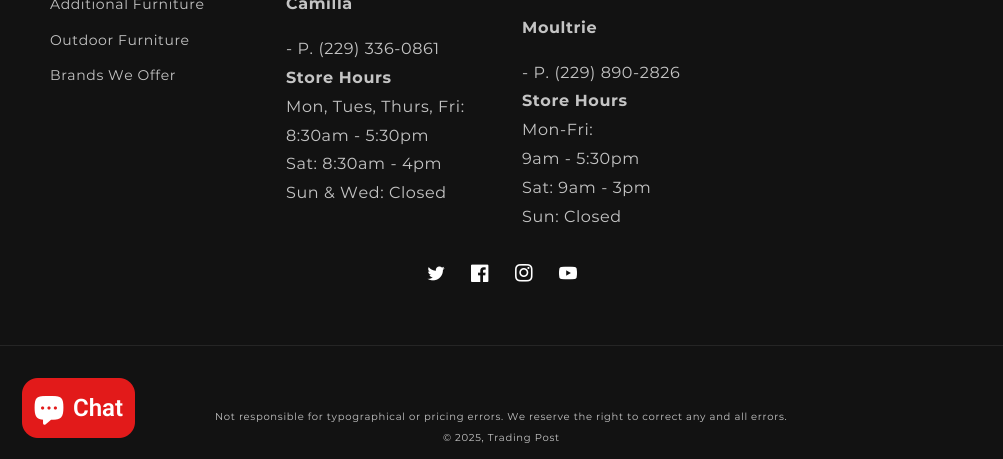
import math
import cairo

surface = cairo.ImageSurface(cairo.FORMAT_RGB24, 1003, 459)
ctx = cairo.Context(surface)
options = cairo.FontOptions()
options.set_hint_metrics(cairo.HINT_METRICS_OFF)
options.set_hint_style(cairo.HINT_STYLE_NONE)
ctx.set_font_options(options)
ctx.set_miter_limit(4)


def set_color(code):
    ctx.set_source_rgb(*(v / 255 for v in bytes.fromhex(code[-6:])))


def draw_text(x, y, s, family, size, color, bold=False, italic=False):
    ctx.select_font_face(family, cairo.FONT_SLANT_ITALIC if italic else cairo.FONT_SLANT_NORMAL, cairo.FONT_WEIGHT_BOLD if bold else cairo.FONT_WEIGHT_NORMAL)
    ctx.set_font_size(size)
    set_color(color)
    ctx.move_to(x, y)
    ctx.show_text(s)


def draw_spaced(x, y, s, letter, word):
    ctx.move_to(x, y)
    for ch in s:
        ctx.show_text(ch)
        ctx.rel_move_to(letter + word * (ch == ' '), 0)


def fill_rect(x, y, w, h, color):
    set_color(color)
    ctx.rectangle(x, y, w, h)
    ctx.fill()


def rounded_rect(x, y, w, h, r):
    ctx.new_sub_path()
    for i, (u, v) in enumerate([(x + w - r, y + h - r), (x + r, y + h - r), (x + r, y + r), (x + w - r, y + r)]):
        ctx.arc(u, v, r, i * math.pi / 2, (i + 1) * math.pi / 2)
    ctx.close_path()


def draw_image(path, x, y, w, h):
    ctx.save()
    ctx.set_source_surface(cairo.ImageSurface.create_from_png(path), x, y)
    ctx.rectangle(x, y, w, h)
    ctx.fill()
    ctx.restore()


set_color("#121212")
ctx.paint()
ctx.select_font_face("Montserrat")
ctx.set_font_size(14)
set_color("#c4c4c4")
draw_spaced(50, 9, "Additional Furniture", 0.6, 0)
draw_spaced(50, 45, "Outdoor Furniture", 0.6, 0)
draw_spaced(50, 80, "Brands We Offer", 0.6, 0)
ctx.select_font_face("Montserrat", cairo.FONT_SLANT_NORMAL, cairo.FONT_WEIGHT_BOLD)
ctx.set_font_size(16)
draw_spaced(286, 9, "Camilla", 0.6, 0)
ctx.select_font_face("Montserrat")
draw_spaced(286, 54, "- P. (229) 336-0861", 0.6, 0)
ctx.select_font_face("Montserrat", cairo.FONT_SLANT_NORMAL, cairo.FONT_WEIGHT_BOLD)
draw_spaced(286, 83, "Store Hours", 0.6, 0)
ctx.select_font_face("Montserrat")
draw_spaced(286, 112, "Mon, Tues, Thurs, Fri:", 0.6, 0)
draw_spaced(286, 141, "8:30am - 5:30pm", 0.6, 0)
draw_spaced(286, 169, "Sat: 8:30am - 4pm", 0.6, 0)
draw_spaced(286, 198, "Sun & Wed: Closed", 0.6, 0)
ctx.select_font_face("Montserrat", cairo.FONT_SLANT_NORMAL, cairo.FONT_WEIGHT_BOLD)
draw_spaced(522, 33, "Moultrie", 0.6, 0)
ctx.select_font_face("Montserrat")
draw_spaced(522, 78, "- P. (229) 890-2826", 0.6, 0)
ctx.select_font_face("Montserrat", cairo.FONT_SLANT_NORMAL, cairo.FONT_WEIGHT_BOLD)
draw_spaced(522, 106, "Store Hours", 0.6, 0)
ctx.select_font_face("Montserrat")
draw_spaced(522, 135, "Mon-Fri:", 0.6, 0)
draw_spaced(522, 164, "9am - 5:30pm", 0.6, 0)
draw_spaced(522, 193, "Sat: 9am - 3pm", 0.6, 0)
draw_spaced(522, 222, "Sun: Closed", 0.6, 0)
draw_image("assets/img1.png", 427, 266, 18, 15)
draw_image("assets/img2.png", 471, 264, 18, 18)
draw_image("assets/img3.png", 515, 264, 18, 18)
draw_image("assets/img4.png", 559, 266, 18, 14)
fill_rect(0, 345, 1003, 1, "#252525")
ctx.set_font_size(10)
set_color("#c4c4c4")
draw_spaced(215, 420, "Not responsible for typographical or pricing errors. We reserve the right to correct any and all errors.", 0.7, 0)
draw_spaced(443, 441, "© 2025, Trading Post", 0.7, 0)
set_color("#e21a1a")
rounded_rect(22, 378, 113, 60, 16)
ctx.fill()
draw_image("assets/img5.png", 34, 396, 30, 29)
draw_text(73, 416, "Chat", "Roboto SemiBold", 24, "#ffffff")
surface.write_to_png("output.png")
